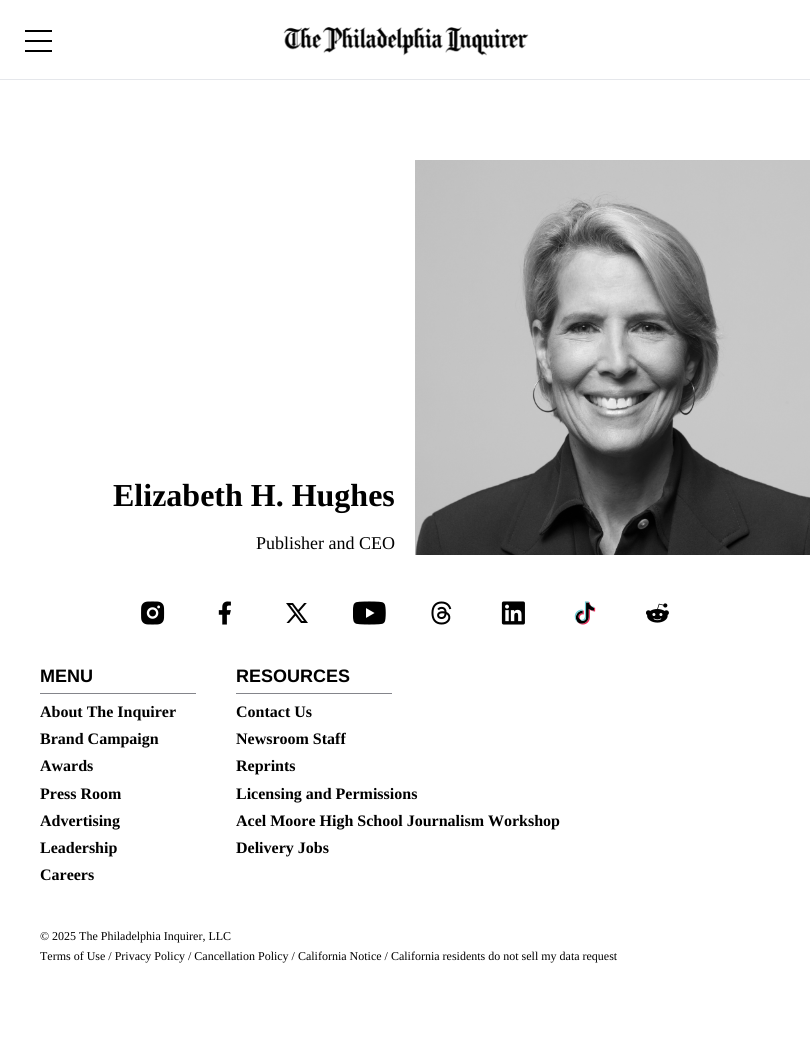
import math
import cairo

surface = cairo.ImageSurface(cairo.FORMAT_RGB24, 810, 1052)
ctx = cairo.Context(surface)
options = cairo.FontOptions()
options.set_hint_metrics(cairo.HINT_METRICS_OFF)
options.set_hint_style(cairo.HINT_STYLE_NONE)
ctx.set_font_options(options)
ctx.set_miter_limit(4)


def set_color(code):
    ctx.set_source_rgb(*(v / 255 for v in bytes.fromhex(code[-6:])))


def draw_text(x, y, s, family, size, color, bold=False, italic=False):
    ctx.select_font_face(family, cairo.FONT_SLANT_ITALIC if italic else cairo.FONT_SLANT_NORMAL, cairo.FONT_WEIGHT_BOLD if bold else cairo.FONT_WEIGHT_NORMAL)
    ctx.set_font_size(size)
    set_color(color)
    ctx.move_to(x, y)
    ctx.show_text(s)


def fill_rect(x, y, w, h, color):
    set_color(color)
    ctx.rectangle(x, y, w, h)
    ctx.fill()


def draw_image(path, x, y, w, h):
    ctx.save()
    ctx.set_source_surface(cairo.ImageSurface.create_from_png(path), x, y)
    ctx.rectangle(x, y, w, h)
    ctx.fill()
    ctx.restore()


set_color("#ffffff")
ctx.paint()
fill_rect(0, 79, 810, 1, "#e5e7eb")
fill_rect(25, 40, 27, 2, "#000000")
fill_rect(25, 30, 27, 2, "#000000")
fill_rect(25, 50, 27, 2, "#000000")
draw_image("assets/img1.png", 283, 27, 246, 29)
draw_text(113, 506, "Elizabeth H. Hughes", "Liberation Serif", 32, "#000000", bold=True)
draw_text(256, 549, "Publisher and CEO", "Liberation Serif", 18, "#000000")
draw_image("assets/img2.png", 415, 160, 395, 395)
draw_image("assets/img3.png", 141, 601, 24, 24)
draw_image("assets/img4.png", 218, 601, 13, 24)
draw_image("assets/img5.png", 286, 603, 22, 20)
draw_image("assets/img6.png", 353, 601, 33, 24)
draw_image("assets/img7.png", 431, 601, 21, 24)
draw_image("assets/img8.png", 501, 601, 24, 24)
draw_image("assets/img9.png", 574, 601, 22, 24)
draw_image("assets/img10.png", 646, 603, 23, 20)
fill_rect(40, 693, 156, 1, "#84858b")
draw_text(40, 682, "MENU", "Liberation Sans", 18, "#000000", bold=True)
draw_text(40, 717, "About The Inquirer", "Liberation Serif", 16, "#000000", bold=True)
draw_text(40, 744, "Brand Campaign", "Liberation Serif", 16, "#000000", bold=True)
draw_text(40, 771, "Awards", "Liberation Serif", 16, "#000000", bold=True)
draw_text(40, 799, "Press Room", "Liberation Serif", 16, "#000000", bold=True)
draw_text(40, 826, "Advertising", "Liberation Serif", 16, "#000000", bold=True)
draw_text(40, 853, "Leadership", "Liberation Serif", 16, "#000000", bold=True)
draw_text(40, 880, "Careers", "Liberation Serif", 16, "#000000", bold=True)
fill_rect(236, 693, 156, 1, "#84858b")
draw_text(236, 682, "RESOURCES", "Liberation Sans", 18, "#000000", bold=True)
draw_text(236, 717, "Contact Us", "Liberation Serif", 16, "#000000", bold=True)
draw_text(236, 744, "Newsroom Staff", "Liberation Serif", 16, "#000000", bold=True)
draw_text(236, 771, "Reprints", "Liberation Serif", 16, "#000000", bold=True)
draw_text(236, 799, "Licensing and Permissions", "Liberation Serif", 16, "#000000", bold=True)
draw_text(236, 826, "Acel Moore High School Journalism Workshop", "Liberation Serif", 16, "#000000", bold=True)
draw_text(236, 853, "Delivery Jobs", "Liberation Serif", 16, "#000000", bold=True)
draw_text(40, 940, "© 2025 The Philadelphia Inquirer, LLC", "Liberation Serif", 12, "#000000")
draw_text(40, 960, "Terms of Use / Privacy Policy / Cancellation Policy / California Notice / California residents do not sell my data request", "Liberation Serif", 12, "#000000")
surface.write_to_png("output.png")
